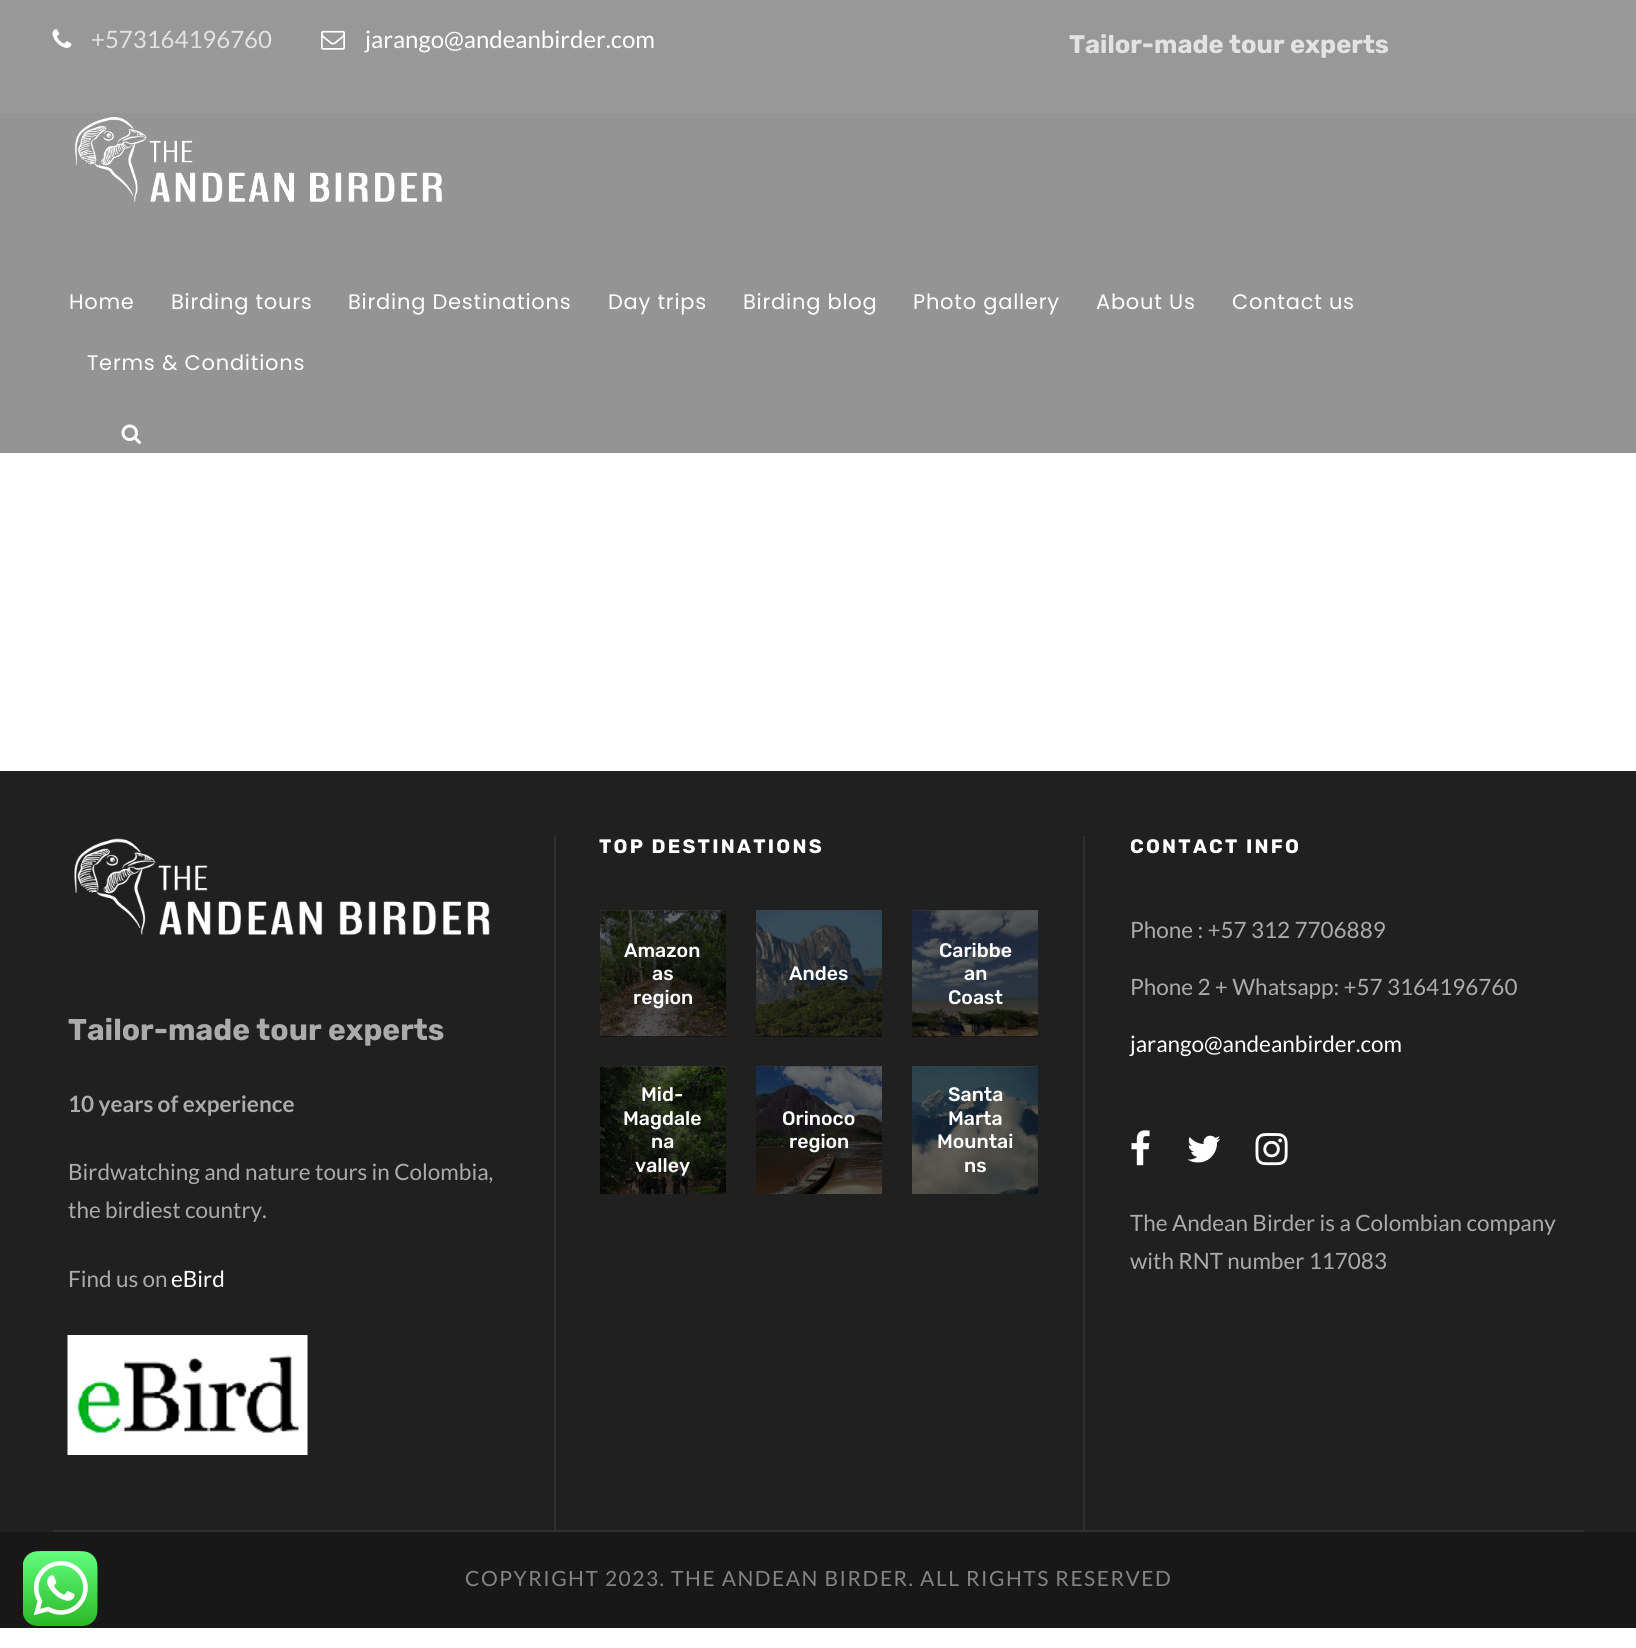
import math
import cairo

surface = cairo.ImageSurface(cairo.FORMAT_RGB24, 1636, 1648)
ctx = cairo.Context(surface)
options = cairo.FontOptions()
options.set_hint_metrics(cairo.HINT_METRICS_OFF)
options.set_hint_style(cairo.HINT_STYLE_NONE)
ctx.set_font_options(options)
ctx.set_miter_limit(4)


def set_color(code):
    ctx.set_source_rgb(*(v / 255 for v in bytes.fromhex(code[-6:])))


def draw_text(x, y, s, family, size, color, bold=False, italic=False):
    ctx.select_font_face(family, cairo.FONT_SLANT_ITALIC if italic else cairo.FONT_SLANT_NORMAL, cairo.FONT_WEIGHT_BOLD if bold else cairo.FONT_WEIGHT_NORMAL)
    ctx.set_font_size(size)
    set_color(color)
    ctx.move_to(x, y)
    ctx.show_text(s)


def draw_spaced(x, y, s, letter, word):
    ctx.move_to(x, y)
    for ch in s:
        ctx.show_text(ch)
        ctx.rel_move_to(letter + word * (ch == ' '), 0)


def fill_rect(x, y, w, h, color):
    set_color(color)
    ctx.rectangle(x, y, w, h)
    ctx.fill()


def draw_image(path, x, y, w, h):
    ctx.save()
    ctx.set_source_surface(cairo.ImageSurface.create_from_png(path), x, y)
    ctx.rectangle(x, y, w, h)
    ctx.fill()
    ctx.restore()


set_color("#ffffff")
ctx.paint()
fill_rect(0, 1532, 1636, 96, "#181818")
draw_image("assets/img1.png", 23, 1551, 75, 75)
fill_rect(0, 0, 1636, 113, "#989898")
draw_image("assets/img2.png", 52, 29, 20, 19)
draw_text(91, 48, "+573164196760", "Lato", 24, "#e2e2e2")
draw_image("assets/img3.png", 321, 30, 24, 20)
draw_text(365, 48, "jarango@andeanbirder.com", "Lato", 24, "#ffffff")
draw_text(1069, 53, "Tailor-made tour experts", "Rubik", 25.5, "#e2e2e2", bold=True)
fill_rect(0, 113, 1636, 340, "#949494")
draw_image("assets/img4.png", 75, 116, 367, 86)
ctx.select_font_face("Poppins")
ctx.set_font_size(21)
set_color("#ffffff")
draw_spaced(69, 309, "Home", 0.75, 0)
draw_spaced(171, 309, "Birding tours", 0.75, 0)
draw_spaced(348, 309, "Birding Destinations", 0.75, 0)
draw_spaced(608, 309, "Day trips", 0.75, 0)
draw_spaced(743, 309, "Birding blog", 0.75, 0)
draw_spaced(913, 309, "Photo gallery", 0.75, 0)
draw_spaced(1096, 309, "About Us", 0.75, 0)
draw_spaced(1232, 309, "Contact us", 0.75, 0)
draw_spaced(87, 370, "Terms & Conditions", 0.75, 0)
draw_image("assets/img5.png", 121, 424, 20, 20)
fill_rect(0, 771, 1636, 761, "#202020")
fill_rect(912, 1036, 126, 1, "#0d0d0d")
fill_rect(756, 1036, 126, 1, "#0d0d0d")
fill_rect(600, 1036, 126, 1, "#0d0d0d")
draw_image("assets/img6.png", 74, 838, 416, 97)
draw_text(68, 1040, "Tailor-made tour experts", "Rubik", 30, "#ababab", bold=True)
draw_text(68, 1112, "10 years of experience", "Lato", 22.5, "#ababab", bold=True)
draw_text(68, 1180, "Birdwatching and nature tours in Colombia,", "Lato", 22.5, "#ababab")
draw_text(68, 1218, "the birdiest country.", "Lato", 22.5, "#ababab")
draw_text(68, 1287, "Find us on", "Lato", 22.5, "#ababab")
draw_text(171, 1287, "eBird", "Lato", 22.5, "#ffffff")
draw_image("assets/img7.png", 67, 1335, 241, 120)
fill_rect(554, 836, 2, 694, "#303030")
ctx.select_font_face("Rubik", cairo.FONT_SLANT_NORMAL, cairo.FONT_WEIGHT_BOLD)
ctx.set_font_size(19.5)
set_color("#ffffff")
draw_spaced(599, 853, "TOP DESTINATIONS", 2.25, 0)
draw_image("assets/img8.png", 600, 910, 126, 127)
draw_text(624, 957, "Amazon", "Rubik Medium", 19.5, "#ffffff")
draw_text(652, 980, "as", "Rubik Medium", 19.5, "#ffffff")
draw_text(633, 1004, "region", "Rubik Medium", 19.5, "#ffffff")
draw_image("assets/img9.png", 756, 910, 126, 127)
draw_text(789, 980, "Andes", "Rubik Medium", 19.5, "#ffffff")
draw_image("assets/img10.png", 912, 910, 126, 127)
draw_text(939, 957, "Caribbe", "Rubik Medium", 19.5, "#ffffff")
draw_text(964, 980, "an", "Rubik Medium", 19.5, "#ffffff")
draw_text(948, 1004, "Coast", "Rubik Medium", 19.5, "#ffffff")
draw_image("assets/img11.png", 600, 1066, 126, 128)
draw_text(641, 1101, "Mid-", "Rubik Medium", 19.5, "#ffffff")
draw_text(623, 1125, "Magdale", "Rubik Medium", 19.5, "#ffffff")
draw_text(651, 1148, "na", "Rubik Medium", 19.5, "#ffffff")
draw_text(635, 1172, "valley", "Rubik Medium", 19.5, "#ffffff")
draw_image("assets/img12.png", 756, 1066, 126, 128)
draw_text(782, 1125, "Orinoco", "Rubik Medium", 19.5, "#ffffff")
draw_text(789, 1148, "region", "Rubik Medium", 19.5, "#ffffff")
draw_image("assets/img13.png", 912, 1066, 126, 128)
draw_text(948, 1101, "Santa", "Rubik Medium", 19.5, "#ffffff")
draw_text(948, 1125, "Marta", "Rubik Medium", 19.5, "#ffffff")
draw_text(937, 1148, "Mountai", "Rubik Medium", 19.5, "#ffffff")
draw_text(964, 1172, "ns", "Rubik Medium", 19.5, "#ffffff")
fill_rect(1083, 836, 2, 694, "#303030")
ctx.select_font_face("Rubik", cairo.FONT_SLANT_NORMAL, cairo.FONT_WEIGHT_BOLD)
set_color("#ffffff")
draw_spaced(1130, 853, "CONTACT INFO", 2.25, 0)
draw_text(1130, 938, "Phone : +57 312 7706889", "Lato", 22.5, "#ababab")
draw_text(1130, 995, "Phone 2 + Whatsapp: +57 3164196760", "Lato", 22.5, "#ababab")
draw_text(1130, 1052, "jarango@andeanbirder.com", "Lato", 22.5, "#ffffff")
draw_image("assets/img14.png", 1131, 1130, 19, 36)
draw_image("assets/img15.png", 1187, 1135, 34, 28)
draw_image("assets/img16.png", 1255, 1133, 33, 33)
draw_text(1130, 1231, "The Andean Birder is a Colombian company", "Lato", 22.5, "#ababab")
draw_text(1130, 1269, "with RNT number 117083", "Lato", 22.5, "#ababab")
fill_rect(53, 1530, 1531, 2, "#303030")
ctx.set_font_size(21)
set_color("#838383")
draw_spaced(465, 1586, "COPYRIGHT 2023. THE ANDEAN BIRDER. ALL RIGHTS RESERVED", 1.5, 0)
surface.write_to_png("output.png")
